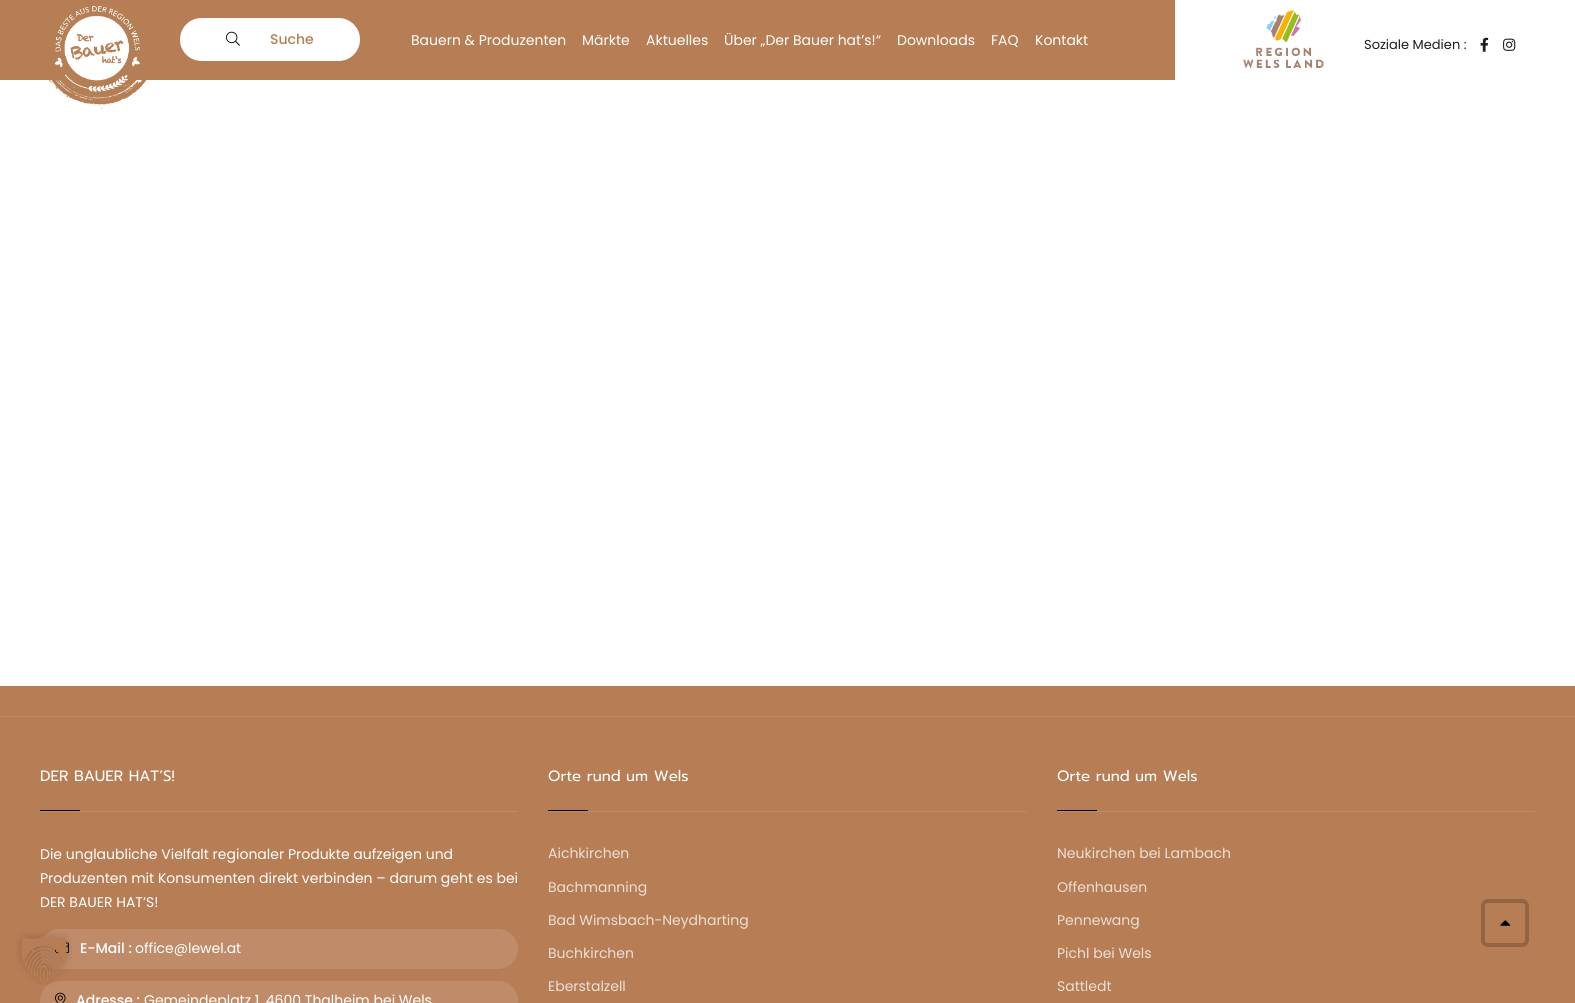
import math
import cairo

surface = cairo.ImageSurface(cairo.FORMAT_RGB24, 1575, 1003)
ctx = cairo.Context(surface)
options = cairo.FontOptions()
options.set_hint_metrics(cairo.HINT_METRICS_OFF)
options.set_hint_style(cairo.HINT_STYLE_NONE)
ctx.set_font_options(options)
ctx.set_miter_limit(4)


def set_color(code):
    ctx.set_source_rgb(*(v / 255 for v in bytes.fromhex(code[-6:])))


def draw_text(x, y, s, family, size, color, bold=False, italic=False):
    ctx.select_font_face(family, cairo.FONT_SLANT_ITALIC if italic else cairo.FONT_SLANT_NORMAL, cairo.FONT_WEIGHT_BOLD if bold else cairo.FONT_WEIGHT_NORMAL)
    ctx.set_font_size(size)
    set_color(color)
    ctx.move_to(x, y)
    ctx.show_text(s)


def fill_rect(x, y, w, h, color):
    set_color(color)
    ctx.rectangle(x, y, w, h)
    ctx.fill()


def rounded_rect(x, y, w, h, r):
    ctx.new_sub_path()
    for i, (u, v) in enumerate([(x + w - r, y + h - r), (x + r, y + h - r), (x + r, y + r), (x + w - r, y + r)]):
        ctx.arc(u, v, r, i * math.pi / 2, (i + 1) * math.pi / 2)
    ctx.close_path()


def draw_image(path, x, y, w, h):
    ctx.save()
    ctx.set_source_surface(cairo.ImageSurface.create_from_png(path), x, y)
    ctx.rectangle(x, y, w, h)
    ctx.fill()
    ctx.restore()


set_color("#b77d55")
ctx.paint()
fill_rect(0, 80, 1575, 606, "#ffffff")
draw_image("assets/img1.png", 49, 6, 100, 103)
fill_rect(1175, 0, 400, 80, "#ffffff")
rounded_rect(180, 18, 180, 43, 21.5)
ctx.fill()
draw_image("assets/img2.png", 226, 31, 14, 15)
draw_text(270, 44, "Suche", "Poppins Medium", 14, "#b77d55")
draw_text(411, 45, "Bauern & Produzenten", "Poppins", 14, "#ffffff")
draw_text(582, 45, "Märkte", "Poppins", 14, "#ffffff")
draw_text(646, 45, "Aktuelles", "Poppins", 14, "#ffffff")
draw_text(724, 45, "Über „Der Bauer hat’s!“", "Poppins", 14, "#ffffff")
draw_text(897, 45, "Downloads", "Poppins", 14, "#ffffff")
draw_text(991, 45, "FAQ", "Poppins", 14, "#ffffff")
draw_text(1035, 45, "Kontakt", "Poppins", 14, "#ffffff")
draw_image("assets/img3.png", 1242, 10, 82, 58)
draw_text(1364, 49, "Soziale Medien :", "Poppins", 13, "#1d1d1d")
draw_image("assets/img4.png", 1480, 37, 9, 15)
draw_image("assets/img5.png", 1503, 38, 13, 13)
fill_rect(0, 716, 1575, 1, "#be8a66")
fill_rect(40, 811, 478, 1, "#bf8b68")
draw_text(40, 781, "DER BAUER HAT’S!", "Prompt", 15, "#ffffff")
fill_rect(40, 810, 40, 1, "#000000")
draw_text(40, 859, "Die unglaubliche Vielfalt regionaler Produkte aufzeigen und", "Poppins", 14, "#ffffff")
draw_text(40, 883, "Produzenten mit Konsumenten direkt verbinden – darum geht es bei", "Poppins", 14, "#ffffff")
draw_text(40, 907, "DER BAUER HAT’S!", "Poppins", 14, "#ffffff")
set_color("#bf8b68")
rounded_rect(40, 929, 478, 40, 20)
ctx.fill()
draw_image("assets/img6.png", 55, 942, 14, 11)
draw_text(80, 953, "E-Mail :", "Poppins Medium", 14, "#ffffff")
draw_text(135, 953, "office@lewel.at", "Poppins", 14, "#ffffff")
draw_image("assets/img8.png", 415, 996, 19, 7)
ctx.set_source_rgba(1, 1, 1, 0.11)
rounded_rect(40, 981, 478, 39, 19.5)
ctx.fill()
draw_image("assets/img7.png", 55, 992, 11, 11)
draw_text(76, 1005, "Adresse :", "Poppins Medium", 14, "#ffffff")
draw_text(144, 1005, "Gemeindeplatz 1, 4600 Thalheim bei Wels", "Poppins", 14, "#ffffff")
fill_rect(548, 811, 479, 1, "#bf8b68")
draw_text(548, 781, "Orte rund um Wels", "Prompt", 15, "#ffffff")
fill_rect(548, 810, 40, 1, "#000000")
draw_text(548, 858, "Aichkirchen", "Poppins", 14, "#eddfd5")
draw_text(548, 892, "Bachmanning", "Poppins", 14, "#eddfd5")
draw_text(548, 925, "Bad Wimsbach-Neydharting", "Poppins", 14, "#eddfd5")
draw_text(548, 958, "Buchkirchen", "Poppins", 14, "#eddfd5")
draw_text(548, 991, "Eberstalzell", "Poppins", 14, "#eddfd5")
fill_rect(1057, 811, 478, 1, "#bf8b68")
draw_text(1057, 781, "Orte rund um Wels", "Prompt", 15, "#ffffff")
fill_rect(1057, 810, 40, 1, "#000000")
draw_text(1057, 858, "Neukirchen bei Lambach", "Poppins", 14, "#eddfd5")
draw_text(1057, 892, "Offenhausen", "Poppins", 14, "#eddfd5")
draw_text(1057, 925, "Pennewang", "Poppins", 14, "#eddfd5")
draw_text(1057, 958, "Pichl bei Wels", "Poppins", 14, "#eddfd5")
draw_text(1057, 991, "Sattledt", "Poppins", 14, "#eddfd5")
rounded_rect(1483, 901, 44, 44, 5)
set_color("#926444")
ctx.set_line_width(4)
ctx.stroke()
set_color("#b77d55")
rounded_rect(1485, 903, 40, 40, 3)
ctx.fill()
draw_image("assets/img9.png", 1500, 920, 11, 6)
draw_image("assets/img10.png", 16, 931, 56, 54)
surface.write_to_png("output.png")
